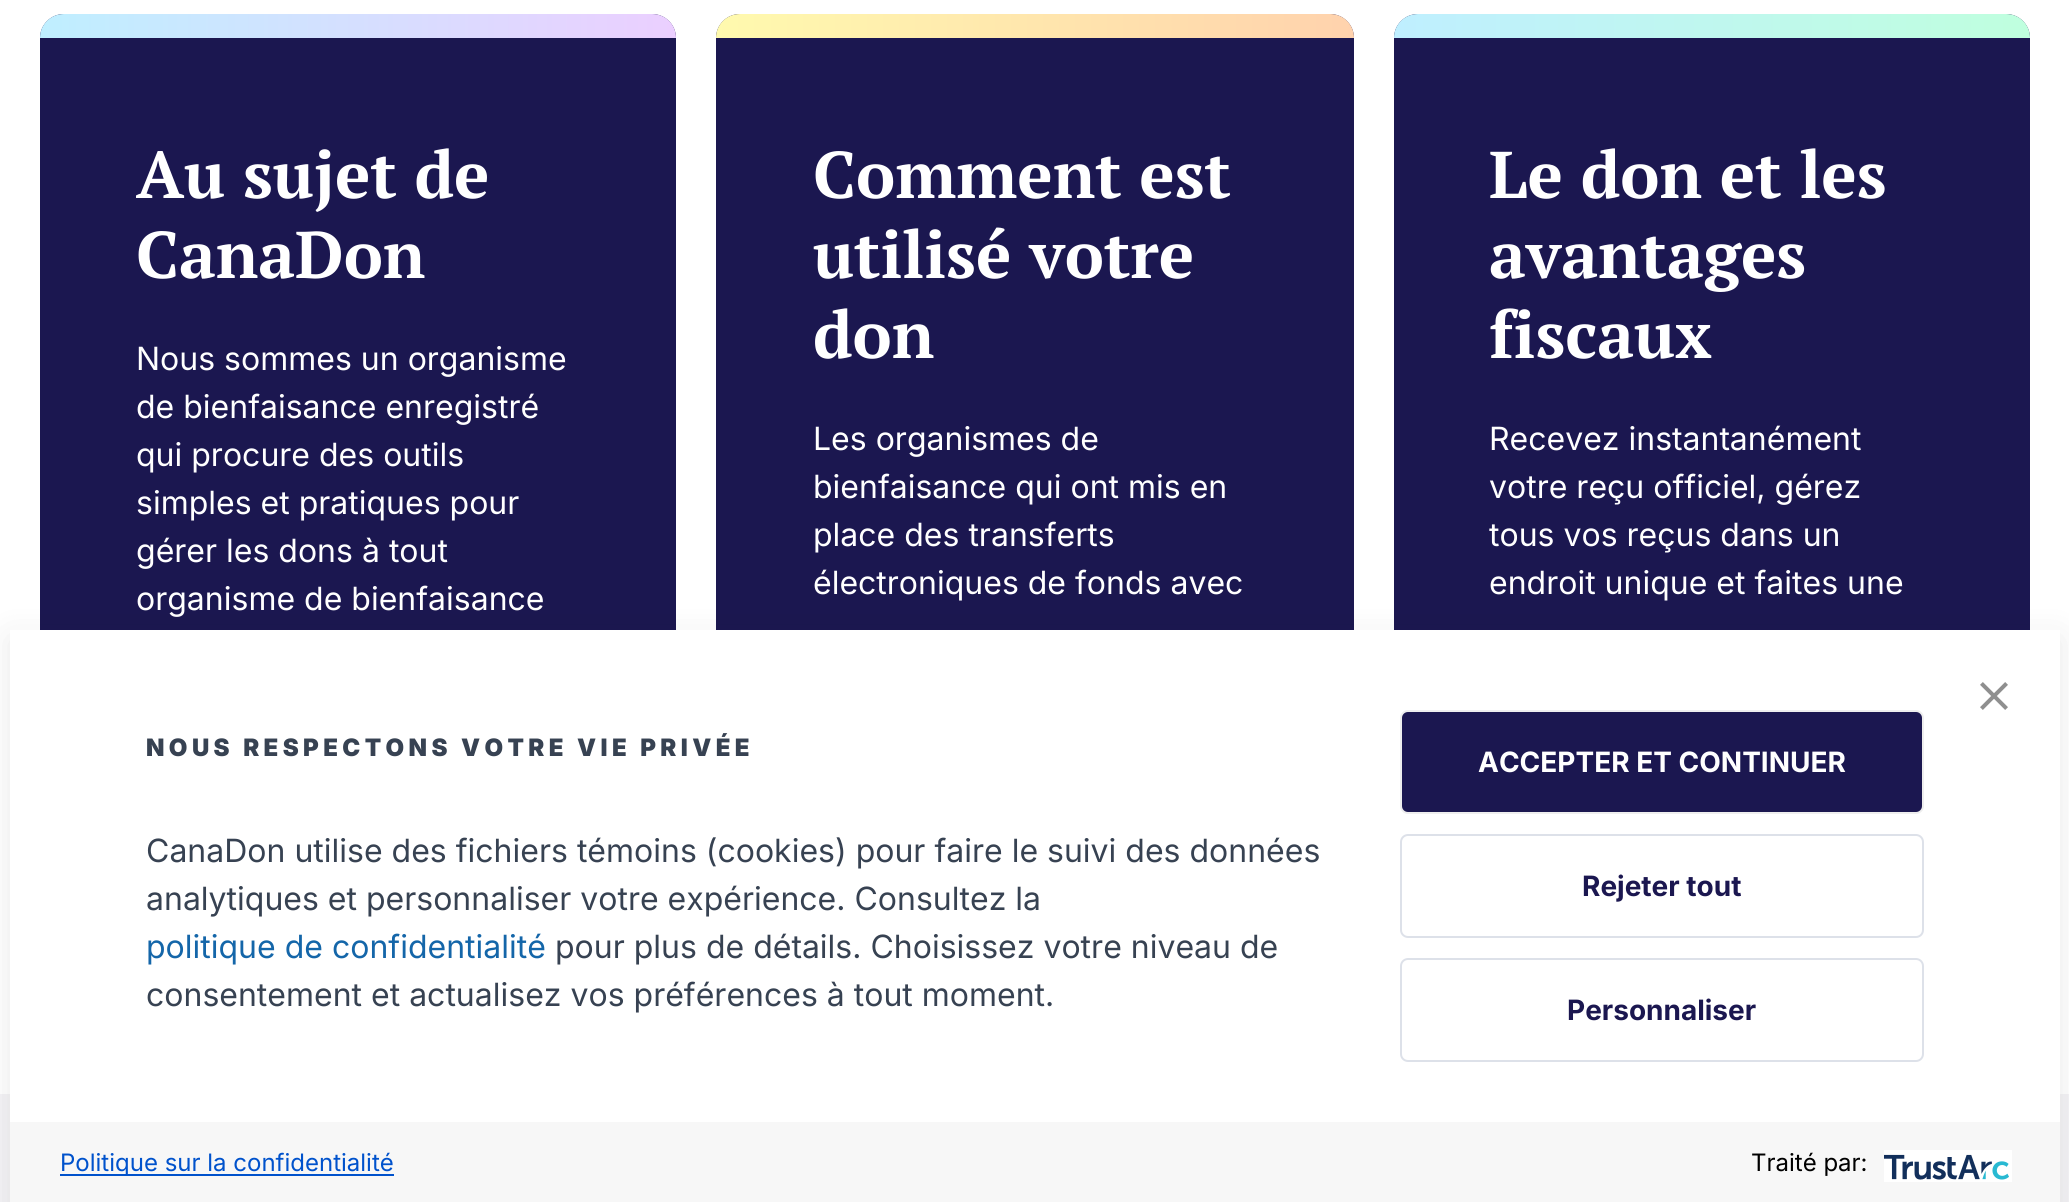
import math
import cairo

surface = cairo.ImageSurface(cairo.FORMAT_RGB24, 2069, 1202)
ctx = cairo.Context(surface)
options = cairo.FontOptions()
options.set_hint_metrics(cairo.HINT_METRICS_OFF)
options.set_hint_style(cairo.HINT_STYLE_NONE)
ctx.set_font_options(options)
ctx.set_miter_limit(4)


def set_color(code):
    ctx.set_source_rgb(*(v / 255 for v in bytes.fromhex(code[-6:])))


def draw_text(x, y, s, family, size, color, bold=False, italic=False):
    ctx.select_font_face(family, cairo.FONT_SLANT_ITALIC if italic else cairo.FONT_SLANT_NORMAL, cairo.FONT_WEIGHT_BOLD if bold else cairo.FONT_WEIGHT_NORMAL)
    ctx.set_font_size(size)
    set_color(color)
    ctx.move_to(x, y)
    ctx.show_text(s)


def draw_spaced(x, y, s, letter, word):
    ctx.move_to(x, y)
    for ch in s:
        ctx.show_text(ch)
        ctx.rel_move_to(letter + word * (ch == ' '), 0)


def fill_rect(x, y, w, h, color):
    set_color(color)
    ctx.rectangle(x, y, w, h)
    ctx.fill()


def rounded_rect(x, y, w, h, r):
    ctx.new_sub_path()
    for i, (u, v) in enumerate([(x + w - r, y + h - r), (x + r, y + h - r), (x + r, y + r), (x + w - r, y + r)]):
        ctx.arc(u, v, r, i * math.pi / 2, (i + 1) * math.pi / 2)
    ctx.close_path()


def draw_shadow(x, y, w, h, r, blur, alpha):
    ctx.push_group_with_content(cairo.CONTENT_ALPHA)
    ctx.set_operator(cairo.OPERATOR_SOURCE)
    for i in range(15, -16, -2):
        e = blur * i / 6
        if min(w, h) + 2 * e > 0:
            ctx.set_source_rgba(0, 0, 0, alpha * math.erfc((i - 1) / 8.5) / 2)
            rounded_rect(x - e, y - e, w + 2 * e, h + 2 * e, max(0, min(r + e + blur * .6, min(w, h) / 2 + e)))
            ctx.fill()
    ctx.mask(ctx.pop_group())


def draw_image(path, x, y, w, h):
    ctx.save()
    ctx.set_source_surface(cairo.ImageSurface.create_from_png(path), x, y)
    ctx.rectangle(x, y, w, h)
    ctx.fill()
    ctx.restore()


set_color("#ffffff")
ctx.paint()
set_color("#1b1750")
rounded_rect(40, 14, 636, 880, 24)
ctx.fill()
gradient = cairo.LinearGradient(40, 26, 676, 26)
gradient.add_color_stop_rgba(0, 0.749, 0.937, 1, 1)
gradient.add_color_stop_rgba(1, 0.922, 0.812, 1, 1)
ctx.set_source(gradient)
ctx.new_path()
ctx.move_to(64, 14)
ctx.line_to(652, 14)
ctx.curve_to(665.5, 14, 676, 24.5, 676, 38)
ctx.line_to(40, 38)
ctx.curve_to(40, 24.5, 50.5, 14, 64, 14)
ctx.close_path()
ctx.fill()
draw_text(136, 198, "Au sujet de", "PT Serif", 66, "#ffffff", bold=True)
draw_text(136, 278, "CanaDon", "PT Serif", 66, "#ffffff", bold=True)
draw_text(136, 370, "Nous sommes un organisme", "Inter", 32, "#ffffff")
draw_text(136, 418, "de bienfaisance enregistré", "Inter", 32, "#ffffff")
draw_text(136, 466, "qui procure des outils", "Inter", 32, "#ffffff")
draw_text(136, 514, "simples et pratiques pour", "Inter", 32, "#ffffff")
draw_text(136, 562, "gérer les dons à tout", "Inter", 32, "#ffffff")
draw_text(136, 610, "organisme de bienfaisance", "Inter", 32, "#ffffff")
set_color("#1b1750")
rounded_rect(716, 14, 638, 880, 24)
ctx.fill()
gradient = cairo.LinearGradient(716, 26, 1354, 26)
gradient.add_color_stop_rgba(0, 1, 0.98, 0.682, 1)
gradient.add_color_stop_rgba(1, 1, 0.824, 0.678, 1)
ctx.set_source(gradient)
ctx.new_path()
ctx.move_to(740, 14)
ctx.line_to(1330, 14)
ctx.curve_to(1343.5, 14, 1354, 24.5, 1354, 38)
ctx.line_to(716, 38)
ctx.curve_to(716, 24.5, 726.5, 14, 740, 14)
ctx.close_path()
ctx.fill()
draw_text(813, 198, "Comment est", "PT Serif", 66, "#ffffff", bold=True)
draw_text(813, 278, "utilisé votre", "PT Serif", 66, "#ffffff", bold=True)
draw_text(813, 358, "don", "PT Serif", 66, "#ffffff", bold=True)
draw_text(813, 450, "Les organismes de", "Inter", 32, "#ffffff")
draw_text(813, 498, "bienfaisance qui ont mis en", "Inter", 32, "#ffffff")
draw_text(813, 546, "place des transferts", "Inter", 32, "#ffffff")
draw_text(813, 594, "électroniques de fonds avec", "Inter", 32, "#ffffff")
set_color("#1b1750")
rounded_rect(1394, 14, 636, 880, 24)
ctx.fill()
gradient = cairo.LinearGradient(1394, 26, 2030, 26)
gradient.add_color_stop_rgba(0, 0.749, 0.937, 1, 1)
gradient.add_color_stop_rgba(1, 0.749, 1, 0.871, 1)
ctx.set_source(gradient)
ctx.new_path()
ctx.move_to(1418, 14)
ctx.line_to(2006, 14)
ctx.curve_to(2019.5, 14, 2030, 24.5, 2030, 38)
ctx.line_to(1394, 38)
ctx.curve_to(1394, 24.5, 1404.5, 14, 1418, 14)
ctx.close_path()
ctx.fill()
draw_text(1489, 198, "Le don et les", "PT Serif", 66, "#ffffff", bold=True)
draw_text(1489, 278, "avantages", "PT Serif", 66, "#ffffff", bold=True)
draw_text(1489, 358, "fiscaux", "PT Serif", 66, "#ffffff", bold=True)
draw_text(1489, 450, "Recevez instantanément", "Inter", 32, "#ffffff")
draw_text(1489, 498, "votre reçu officiel, gérez", "Inter", 32, "#ffffff")
draw_text(1489, 546, "tous vos reçus dans un", "Inter", 32, "#ffffff")
draw_text(1489, 594, "endroit unique et faites une", "Inter", 32, "#ffffff")
fill_rect(0, 1094, 2069, 108, "#f4f3f6")
set_color("#161616")
draw_shadow(10, 638, 2050, 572, 0, 16, 0.1)
fill_rect(10, 630, 2050, 492, "#ffffff")
draw_image("assets/img1.png", 1980, 682, 28, 28)
ctx.select_font_face("Inter Black")
ctx.set_font_size(24)
set_color("#374252")
draw_spaced(146, 756, "NOUS RESPECTONS VOTRE VIE PRIVÉE", 4.4, 0)
draw_text(146, 862, "CanaDon utilise des fichiers témoins (cookies) pour faire le suivi des données", "Inter", 32, "#374252")
draw_text(146, 910, "analytiques et personnaliser votre expérience. Consultez la", "Inter", 32, "#374252")
draw_text(146, 958, "politique de confidentialité", "Inter", 32, "#1466a9")
draw_text(555, 958, "pour plus de détails. Choisissez votre niveau de", "Inter", 32, "#374252")
draw_text(146, 1006, "consentement et actualisez vos préférences à tout moment.", "Inter", 32, "#374252")
set_color("#1b1750")
rounded_rect(1401, 711, 522, 102, 7)
ctx.fill_preserve()
set_color("#eeeeee")
ctx.stroke()
draw_text(1478, 772, "ACCEPTER ET CONTINUER", "Inter", 28, "#ffffff", bold=True)
rounded_rect(1401, 835, 522, 102, 7)
set_color("#dde1e9")
ctx.stroke()
draw_text(1582, 896, "Rejeter tout", "Inter", 28, "#1b1750", bold=True)
rounded_rect(1401, 959, 522, 102, 7)
set_color("#dde1e9")
ctx.stroke()
draw_text(1567, 1020, "Personnaliser", "Inter", 28, "#1b1750", bold=True)
fill_rect(10, 1122, 2050, 80, "#f7f7f7")
fill_rect(60, 1174, 334, 2, "#0052cc")
draw_text(60, 1171, "Politique sur la confidentialité", "Inter", 24, "#0052cc")
draw_text(1751, 1171, "Traité par:", "Inter", 24, "#000000")
draw_image("assets/img2.png", 1884, 1150, 128, 32)
surface.write_to_png("output.png")
